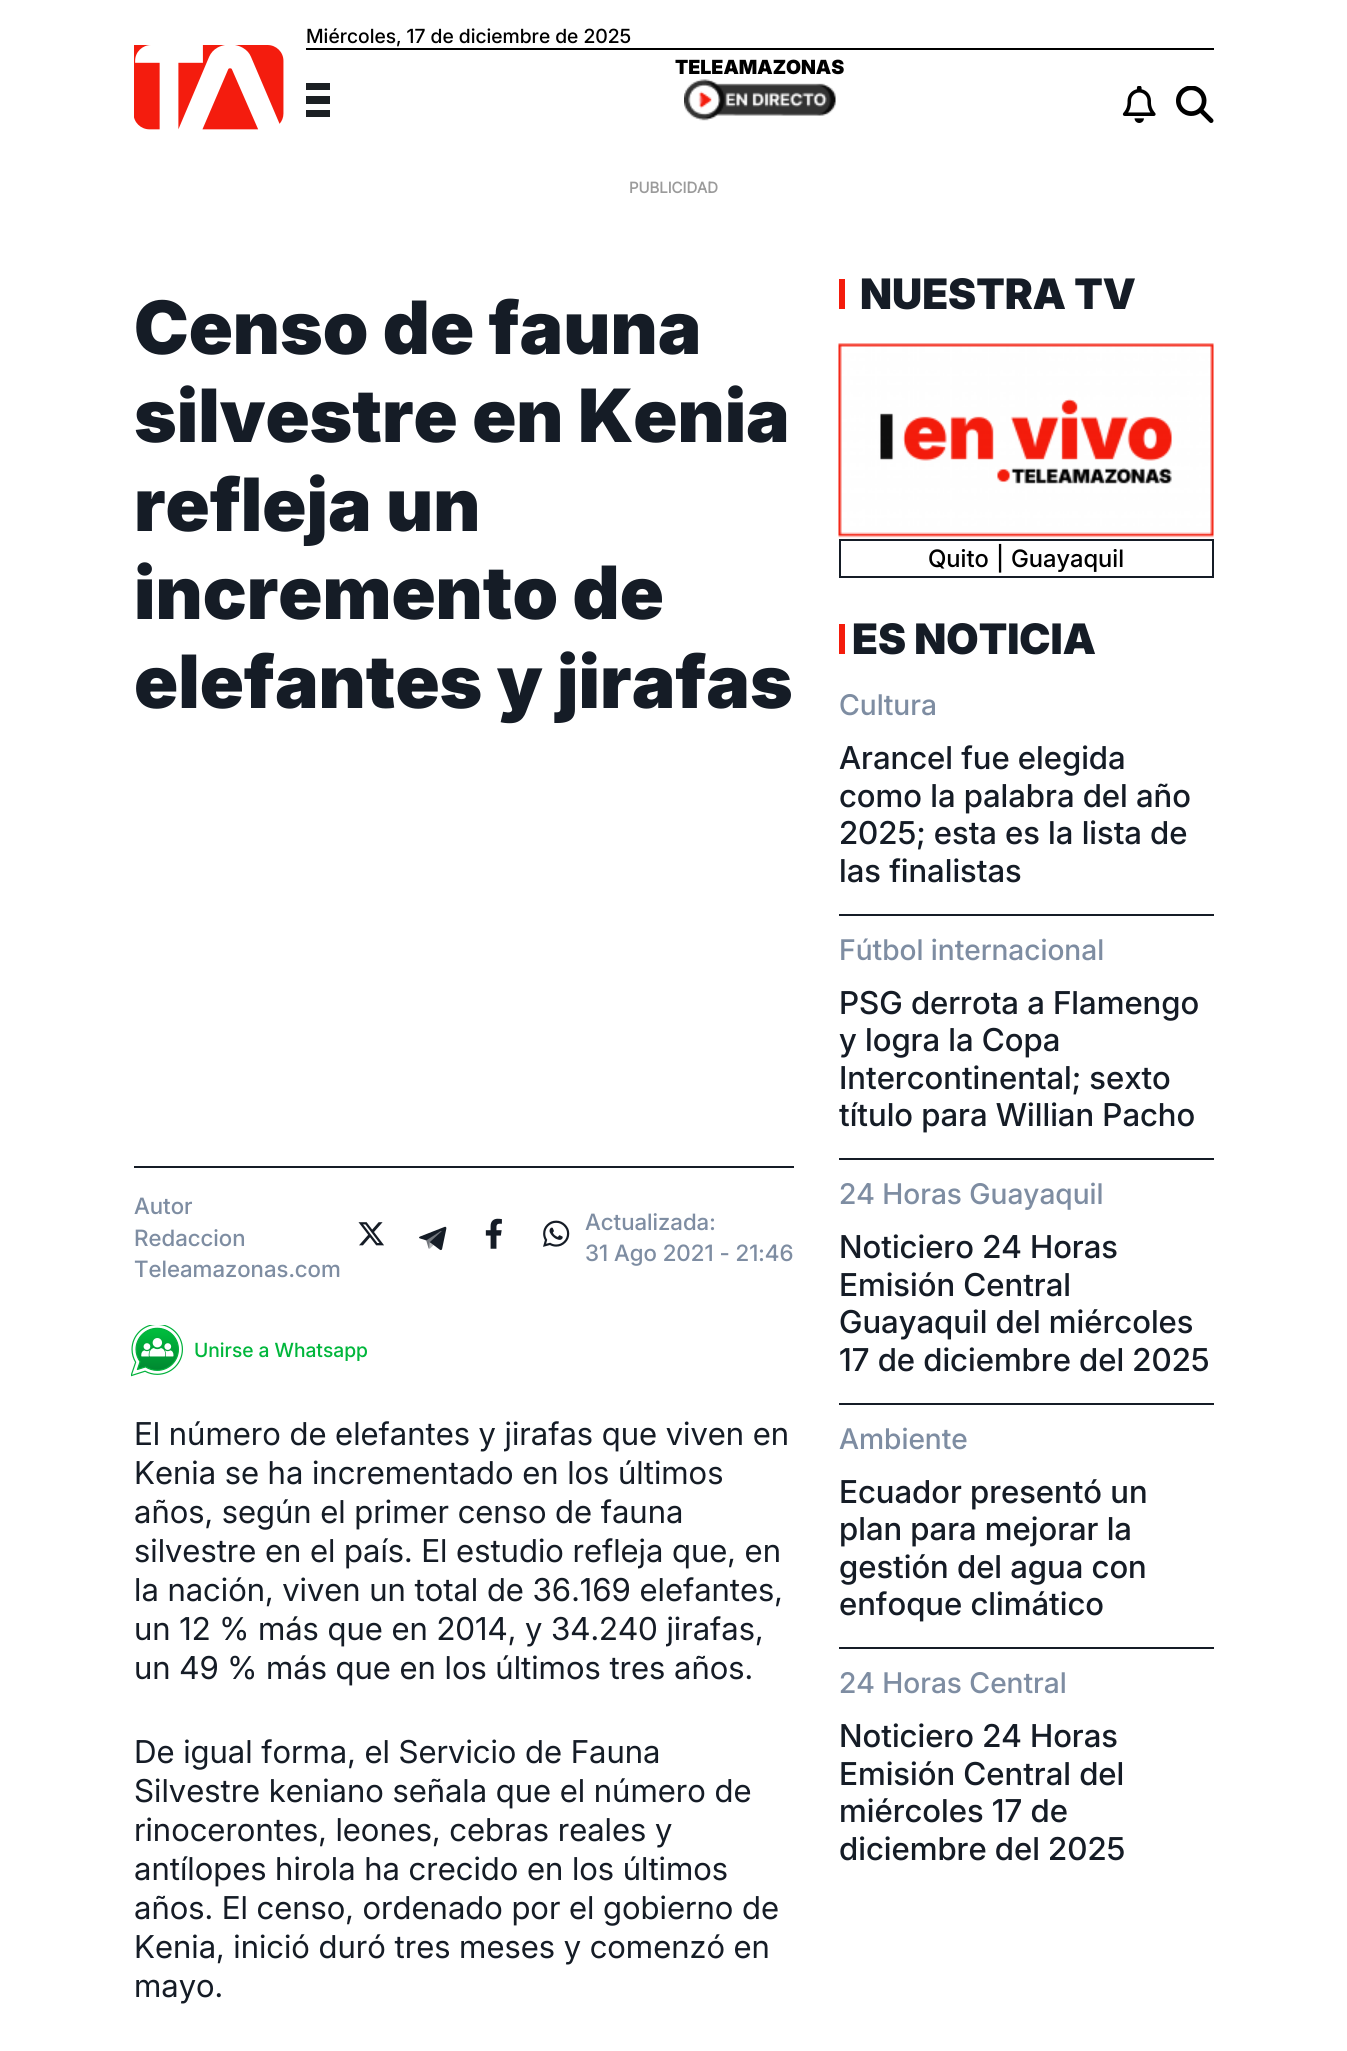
import math
import cairo

surface = cairo.ImageSurface(cairo.FORMAT_RGB24, 1347, 2051)
ctx = cairo.Context(surface)
options = cairo.FontOptions()
options.set_hint_metrics(cairo.HINT_METRICS_OFF)
options.set_hint_style(cairo.HINT_STYLE_NONE)
ctx.set_font_options(options)
ctx.set_miter_limit(4)


def set_color(code):
    ctx.set_source_rgb(*(v / 255 for v in bytes.fromhex(code[-6:])))


def draw_text(x, y, s, family, size, color, bold=False, italic=False):
    ctx.select_font_face(family, cairo.FONT_SLANT_ITALIC if italic else cairo.FONT_SLANT_NORMAL, cairo.FONT_WEIGHT_BOLD if bold else cairo.FONT_WEIGHT_NORMAL)
    ctx.set_font_size(size)
    set_color(color)
    ctx.move_to(x, y)
    ctx.show_text(s)


def fill_rect(x, y, w, h, color):
    set_color(color)
    ctx.rectangle(x, y, w, h)
    ctx.fill()


def draw_image(path, x, y, w, h):
    ctx.save()
    ctx.set_source_surface(cairo.ImageSurface.create_from_png(path), x, y)
    ctx.rectangle(x, y, w, h)
    ctx.fill()
    ctx.restore()


set_color("#ffffff")
ctx.paint()
draw_image("assets/img1.png", 134, 45, 150, 85)
fill_rect(306, 48, 908, 2, "#000000")
draw_text(306, 43, "Miércoles, 17 de diciembre de 2025", "Inter Medium", 19.5, "#000000")
draw_image("assets/img2.png", 1122, 86, 34, 37)
draw_image("assets/img3.png", 1176, 86, 38, 37)
draw_text(675, 74, "TELEAMAZONAS", "Inter Black", 19.5, "#000000")
draw_image("assets/img4.png", 684, 79, 152, 42)
fill_rect(306, 96, 24, 8, "#1b1f23")
fill_rect(306, 83, 24, 7, "#1b1f23")
fill_rect(306, 110, 24, 7, "#1b1f23")
draw_text(629, 193, "PUBLICIDAD", "Inter", 15, "#9b9b9b", bold=True)
draw_text(134, 354, "Censo de fauna", "Inter Black", 73.5, "#151c26")
draw_text(134, 442, "silvestre en Kenia", "Inter Black", 73.5, "#151c26")
draw_text(134, 531, "refleja un", "Inter Black", 73.5, "#151c26")
draw_text(134, 619, "incremento de", "Inter Black", 73.5, "#151c26")
draw_text(134, 708, "elefantes y jirafas", "Inter Black", 73.5, "#151c26")
fill_rect(134, 1166, 660, 2, "#151c26")
draw_text(134, 1214, "Autor", "Inter Medium", 22.5, "#7e8da2")
draw_text(134, 1246, "Redaccion", "Inter Medium", 22.5, "#7e8da2")
draw_text(134, 1277, "Teleamazonas.com", "Inter Medium", 22.5, "#7e8da2")
draw_image("assets/img5.png", 358, 1222, 26, 24)
draw_image("assets/img6.png", 419, 1226, 28, 25)
draw_image("assets/img7.png", 485, 1218, 17, 31)
draw_image("assets/img8.png", 543, 1220, 27, 27)
draw_text(585, 1230, "Actualizada:", "Inter Medium", 22.5, "#7e8da2")
draw_text(585, 1261, "31 Ago 2021 - 21:46", "Inter Medium", 22.5, "#7e8da2")
draw_image("assets/img9.png", 131, 1325, 52, 52)
draw_text(194, 1357, "Unirse a Whatsapp", "Inter Medium", 19.5, "#00b63b")
draw_text(134, 1445, "El número de elefantes y jirafas que viven en", "Inter", 31.5, "#151c26")
draw_text(134, 1484, "Kenia se ha incrementado en los últimos", "Inter", 31.5, "#151c26")
draw_text(134, 1523, "años, según el primer censo de fauna", "Inter", 31.5, "#151c26")
draw_text(134, 1562, "silvestre en el país. El estudio refleja que, en", "Inter", 31.5, "#151c26")
draw_text(134, 1601, "la nación, viven un total de 36.169 elefantes,", "Inter", 31.5, "#151c26")
draw_text(134, 1640, "un 12 % más que en 2014, y 34.240 jirafas,", "Inter", 31.5, "#151c26")
draw_text(134, 1679, "un 49 % más que en los últimos tres años.", "Inter", 31.5, "#151c26")
draw_text(134, 1763, "De igual forma, el Servicio de Fauna", "Inter", 31.5, "#151c26")
draw_text(134, 1802, "Silvestre keniano señala que el número de", "Inter", 31.5, "#151c26")
draw_text(134, 1841, "rinocerontes, leones, cebras reales y", "Inter", 31.5, "#151c26")
draw_text(134, 1880, "antílopes hirola ha crecido en los últimos", "Inter", 31.5, "#151c26")
draw_text(134, 1919, "años. El censo, ordenado por el gobierno de", "Inter", 31.5, "#151c26")
draw_text(134, 1958, "Kenia, inició duró tres meses y comenzó en", "Inter", 31.5, "#151c26")
draw_text(134, 1997, "mayo.", "Inter", 31.5, "#151c26")
fill_rect(839, 279, 6, 30, "#f41c0c")
draw_text(860, 309, "NUESTRA TV", "Inter Black", 42, "#151c26")
draw_image("assets/img10.png", 838, 343, 376, 195)
ctx.rectangle(840, 540, 373, 37)
ctx.stroke()
draw_text(928, 567, "Quito", "Inter Medium", 24, "#000000")
draw_text(996, 567, "|", "Inter Medium", 24, "#000000")
draw_text(1011, 567, "Guayaquil", "Inter Medium", 24, "#000000")
fill_rect(839, 624, 6, 30, "#f41c0c")
draw_text(852, 654, "ES NOTICIA", "Inter Black", 42, "#151c26")
fill_rect(839, 914, 375, 2, "#151c26")
draw_text(839, 715, "Cultura", "Inter Medium", 28.5, "#7e8da2")
draw_text(839, 769, "Arancel fue elegida", "Inter Medium", 31.5, "#151c26")
draw_text(839, 807, "como la palabra del año", "Inter Medium", 31.5, "#151c26")
draw_text(839, 844, "2025; esta es la lista de", "Inter Medium", 31.5, "#151c26")
draw_text(839, 882, "las finalistas", "Inter Medium", 31.5, "#151c26")
fill_rect(839, 1158, 375, 2, "#151c26")
draw_text(839, 960, "Fútbol internacional", "Inter Medium", 28.5, "#7e8da2")
draw_text(839, 1014, "PSG derrota a Flamengo", "Inter Medium", 31.5, "#151c26")
draw_text(839, 1051, "y logra la Copa", "Inter Medium", 31.5, "#151c26")
draw_text(839, 1089, "Intercontinental; sexto", "Inter Medium", 31.5, "#151c26")
draw_text(839, 1126, "título para Willian Pacho", "Inter Medium", 31.5, "#151c26")
fill_rect(839, 1403, 375, 2, "#151c26")
draw_text(839, 1204, "24 Horas Guayaquil", "Inter Medium", 28.5, "#7e8da2")
draw_text(839, 1258, "Noticiero 24 Horas", "Inter Medium", 31.5, "#151c26")
draw_text(839, 1296, "Emisión Central", "Inter Medium", 31.5, "#151c26")
draw_text(839, 1333, "Guayaquil del miércoles", "Inter Medium", 31.5, "#151c26")
draw_text(839, 1371, "17 de diciembre del 2025", "Inter Medium", 31.5, "#151c26")
fill_rect(839, 1647, 375, 2, "#151c26")
draw_text(839, 1449, "Ambiente", "Inter Medium", 28.5, "#7e8da2")
draw_text(839, 1503, "Ecuador presentó un", "Inter Medium", 31.5, "#151c26")
draw_text(839, 1540, "plan para mejorar la", "Inter Medium", 31.5, "#151c26")
draw_text(839, 1578, "gestión del agua con", "Inter Medium", 31.5, "#151c26")
draw_text(839, 1615, "enfoque climático", "Inter Medium", 31.5, "#151c26")
draw_text(839, 1693, "24 Horas Central", "Inter Medium", 28.5, "#7e8da2")
draw_text(839, 1747, "Noticiero 24 Horas", "Inter Medium", 31.5, "#151c26")
draw_text(839, 1785, "Emisión Central del", "Inter Medium", 31.5, "#151c26")
draw_text(839, 1822, "miércoles 17 de", "Inter Medium", 31.5, "#151c26")
draw_text(839, 1860, "diciembre del 2025", "Inter Medium", 31.5, "#151c26")
surface.write_to_png("output.png")
